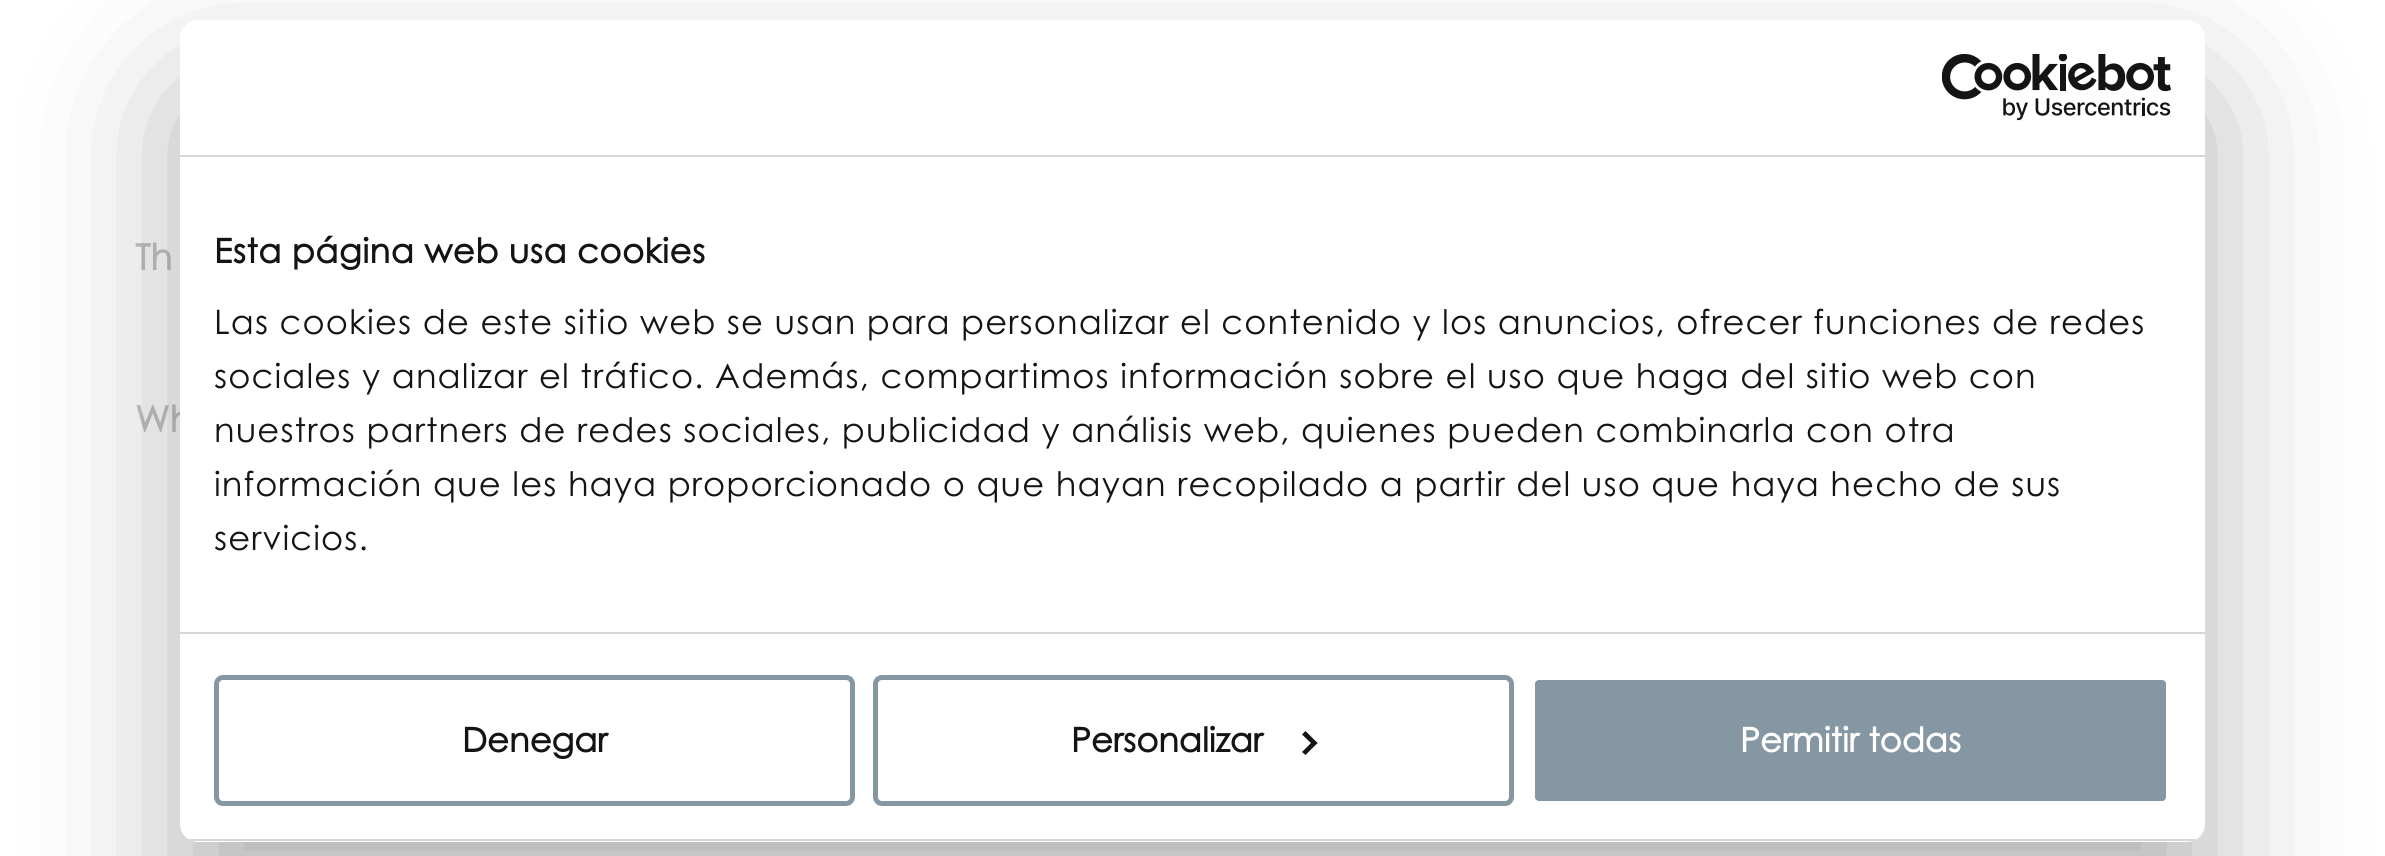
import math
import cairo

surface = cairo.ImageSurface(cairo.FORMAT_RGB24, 2385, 856)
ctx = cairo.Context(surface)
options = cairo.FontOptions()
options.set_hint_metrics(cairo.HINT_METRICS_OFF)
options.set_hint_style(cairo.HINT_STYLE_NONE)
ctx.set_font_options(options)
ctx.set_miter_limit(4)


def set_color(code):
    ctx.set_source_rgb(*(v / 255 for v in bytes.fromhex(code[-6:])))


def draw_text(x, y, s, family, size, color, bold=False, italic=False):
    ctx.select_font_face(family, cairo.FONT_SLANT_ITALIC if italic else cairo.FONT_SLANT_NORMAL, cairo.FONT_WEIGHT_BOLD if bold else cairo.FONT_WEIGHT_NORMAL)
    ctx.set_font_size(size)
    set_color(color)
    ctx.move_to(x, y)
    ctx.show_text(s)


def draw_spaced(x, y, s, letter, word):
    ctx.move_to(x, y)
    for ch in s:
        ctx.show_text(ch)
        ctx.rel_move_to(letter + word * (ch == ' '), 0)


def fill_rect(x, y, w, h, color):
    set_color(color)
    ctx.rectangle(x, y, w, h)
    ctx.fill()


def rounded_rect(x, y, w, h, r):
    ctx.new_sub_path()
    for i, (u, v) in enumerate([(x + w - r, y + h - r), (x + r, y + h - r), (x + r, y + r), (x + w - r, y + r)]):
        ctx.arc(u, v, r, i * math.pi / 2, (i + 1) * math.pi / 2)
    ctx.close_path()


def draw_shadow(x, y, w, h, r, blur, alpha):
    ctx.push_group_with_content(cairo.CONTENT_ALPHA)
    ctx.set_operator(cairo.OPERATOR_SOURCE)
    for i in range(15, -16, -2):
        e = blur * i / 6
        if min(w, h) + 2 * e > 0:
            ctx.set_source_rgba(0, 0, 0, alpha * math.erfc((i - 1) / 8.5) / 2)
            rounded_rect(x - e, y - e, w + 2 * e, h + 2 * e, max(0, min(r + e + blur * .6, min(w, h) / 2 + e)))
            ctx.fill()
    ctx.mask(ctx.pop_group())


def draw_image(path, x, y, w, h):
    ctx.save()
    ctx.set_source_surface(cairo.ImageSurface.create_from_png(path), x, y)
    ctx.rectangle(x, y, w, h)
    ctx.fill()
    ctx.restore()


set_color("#ffffff")
ctx.paint()
draw_text(135, 270, "Th", "Century Gothic", 36, "#c4c4c4", bold=True)
draw_text(135, 432, "Wh", "Century Gothic", 36, "#c4c4c4", bold=True)
set_color("#000000")
draw_shadow(180, 92, 2025, 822, 18, 76.5, 0.3)
set_color("#ffffff")
rounded_rect(180, 20, 2025, 822, 18)
ctx.fill()
fill_rect(180, 155, 2025, 2, "#d6d6d6")
draw_image("assets/img1.png", 1942, 54, 229, 67)
fill_rect(180, 632, 2025, 2, "#d6d6d6")
ctx.set_font_size(33.75)
set_color("#141414")
draw_spaced(214, 263, "Esta página web usa cookies", 0.55, 0)
ctx.select_font_face("Century Gothic")
draw_spaced(214, 334, "Las cookies de este sitio web se usan para personalizar el contenido y los anuncios, ofrecer funciones de redes", 1.12, 0)
draw_spaced(214, 388, "sociales y analizar el tráfico. Además, compartimos información sobre el uso que haga del sitio web con", 1.12, 0)
draw_spaced(214, 442, "nuestros partners de redes sociales, publicidad y análisis web, quienes pueden combinarla con otra", 1.12, 0)
draw_spaced(214, 496, "información que les haya proporcionado o que hayan recopilado a partir del uso que haya hecho de sus", 1.12, 0)
draw_spaced(214, 550, "servicios.", 1.12, 0)
ctx.save()
rounded_rect(180, 20, 2025, 822, 18)
ctx.clip()
fill_rect(180, 839, 2025, 2, "#d6d6d6")
ctx.restore()
rounded_rect(216.5, 677.5, 636, 126, 6.5)
set_color("#8597a3")
ctx.set_line_width(5)
ctx.stroke()
draw_text(462, 752, "Denegar", "Century Gothic", 33.75, "#141414", bold=True)
rounded_rect(875.5, 677.5, 636, 126, 6.5)
set_color("#8597a3")
ctx.stroke()
draw_text(1071, 752, "Personalizar", "Century Gothic", 33.75, "#141414", bold=True)
ctx.new_path()
ctx.move_to(1305.5, 731)
ctx.line_to(1317.5, 743)
ctx.line_to(1314, 746)
ctx.line_to(1302, 734.5)
ctx.close_path()
ctx.fill()
ctx.new_path()
ctx.move_to(1314, 740)
ctx.line_to(1317.5, 743)
ctx.line_to(1305.5, 755)
ctx.line_to(1302, 752)
ctx.close_path()
ctx.fill()
set_color("#8597a3")
rounded_rect(1532.5, 677.5, 636, 126, 6.5)
ctx.fill_preserve()
set_color("#ffffff")
ctx.stroke()
draw_text(1740, 752, "Permitir todas", "Century Gothic", 33.75, "#ffffff", bold=True)
surface.write_to_png("output.png")
